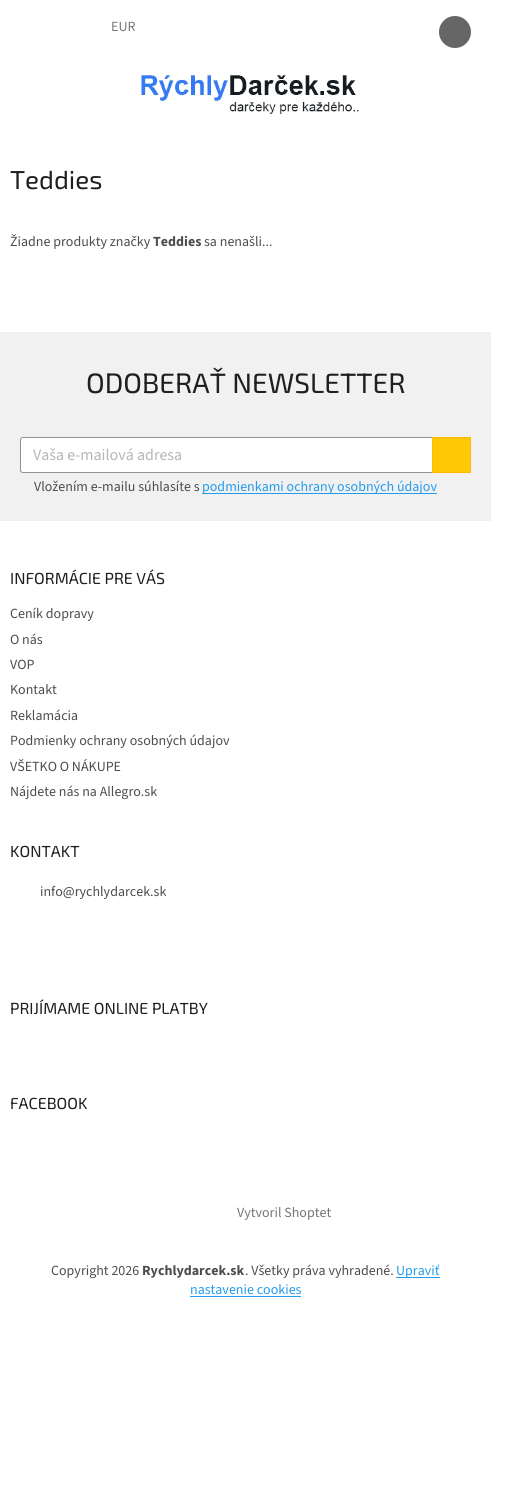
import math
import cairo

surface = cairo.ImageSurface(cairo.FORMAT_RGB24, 506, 1507)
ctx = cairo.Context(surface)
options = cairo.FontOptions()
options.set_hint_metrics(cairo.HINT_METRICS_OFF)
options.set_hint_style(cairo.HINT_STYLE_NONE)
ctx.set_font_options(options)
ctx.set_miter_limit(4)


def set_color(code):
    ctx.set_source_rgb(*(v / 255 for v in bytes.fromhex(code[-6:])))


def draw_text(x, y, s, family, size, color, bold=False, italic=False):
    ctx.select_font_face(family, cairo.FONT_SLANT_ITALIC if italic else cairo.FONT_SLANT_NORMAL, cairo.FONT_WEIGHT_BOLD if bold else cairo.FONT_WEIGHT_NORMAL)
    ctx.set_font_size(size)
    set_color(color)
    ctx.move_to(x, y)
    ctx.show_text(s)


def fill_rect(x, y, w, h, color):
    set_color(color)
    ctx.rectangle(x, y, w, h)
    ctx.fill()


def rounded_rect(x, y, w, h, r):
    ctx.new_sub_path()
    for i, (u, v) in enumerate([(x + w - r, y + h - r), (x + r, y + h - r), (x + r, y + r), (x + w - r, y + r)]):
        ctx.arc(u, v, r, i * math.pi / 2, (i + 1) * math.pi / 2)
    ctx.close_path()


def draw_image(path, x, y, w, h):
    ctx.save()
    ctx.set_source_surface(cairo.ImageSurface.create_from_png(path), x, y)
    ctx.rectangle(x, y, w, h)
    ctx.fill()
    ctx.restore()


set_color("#ffffff")
ctx.paint()
draw_text(111, 31, "EUR", "Source Sans 3", 14, "#767676")
set_color("#666666")
ctx.new_path()
ctx.arc(455, 32, 16, 0, 2 * math.pi)
ctx.fill()
draw_image("assets/img1.png", 140, 74, 219, 40)
draw_text(10, 189, "Teddies", "Exo 2", 26, "#1f1f1f")
draw_text(10, 246, "Žiadne produkty značky", "Source Sans 3", 14, "#4d4d4d")
draw_text(153, 246, "Teddies", "Source Sans 3", 14, "#4d4d4d", bold=True)
draw_text(204, 246, "sa nenašli...", "Source Sans 3", 14, "#4d4d4d")
fill_rect(0, 332, 491, 189, "#f1f1f1")
draw_text(86, 393, "ODOBERAŤ NEWSLETTER", "Exo 2", 28, "#1f1f1f")
set_color("#ffffff")
rounded_rect(20.5, 437.5, 450, 35, 2.5)
ctx.fill_preserve()
set_color("#919191")
ctx.set_line_width(1)
ctx.stroke()
draw_text(33, 460, "Vaša e-mailová adresa", "Source Sans 3", 16, "#b6b6b6")
set_color("#ffc807")
ctx.rectangle(432.5, 437.5, 38, 35)
ctx.fill_preserve()
set_color("#ffbb00")
ctx.stroke()
draw_text(34, 491, "Vložením e-mailu súhlasíte s", "Source Sans 3", 14, "#4d4d4d")
fill_rect(202, 493, 235, 1, "#239ceb")
draw_text(202, 491, "podmienkami ochrany osobných údajov", "Source Sans 3", 14, "#239ceb")
draw_text(10, 584, "INFORMÁCIE PRE VÁS", "Exo 2", 16, "#1f1f1f")
draw_text(10, 618, "Ceník dopravy", "Source Sans 3", 14, "#4d4d4d")
draw_text(10, 644, "O nás", "Source Sans 3", 14, "#4d4d4d")
draw_text(10, 669, "VOP", "Source Sans 3", 14, "#4d4d4d")
draw_text(10, 694, "Kontakt", "Source Sans 3", 14, "#4d4d4d")
draw_text(10, 720, "Reklamácia", "Source Sans 3", 14, "#4d4d4d")
draw_text(10, 745, "Podmienky ochrany osobných údajov", "Source Sans 3", 14, "#4d4d4d")
draw_text(10, 771, "VŠETKO O NÁKUPE", "Source Sans 3", 14, "#4d4d4d")
draw_text(10, 796, "Nájdete nás na Allegro.sk", "Source Sans 3", 14, "#4d4d4d")
draw_text(10, 857, "KONTAKT", "Exo 2", 16, "#1f1f1f")
draw_text(40, 896, "info@rychlydarcek.sk", "Source Sans 3", 14, "#4d4d4d")
draw_text(10, 1014, "PRIJÍMAME ONLINE PLATBY", "Exo 2", 16, "#1f1f1f")
draw_text(10, 1109, "FACEBOOK", "Exo 2", 16, "#1f1f1f")
draw_text(237, 1217, "Vytvoril Shoptet", "Source Sans 3", 14, "#767676")
draw_text(51, 1275, "Copyright 2026", "Source Sans 3", 14, "#4d4d4d")
draw_text(142, 1275, "Rychlydarcek.sk", "Source Sans 3", 14, "#4d4d4d", bold=True)
draw_text(245, 1275, ". Všetky práva vyhradené.", "Source Sans 3", 14, "#4d4d4d")
fill_rect(396, 1277, 44, 1, "#239ceb")
draw_text(396, 1275, "Upraviť", "Source Sans 3", 14, "#239ceb")
draw_text(190, 1294, "nastavenie cookies", "Source Sans 3", 14, "#239ceb")
fill_rect(190, 1296, 111, 1, "#239ceb")
surface.write_to_png("output.png")
